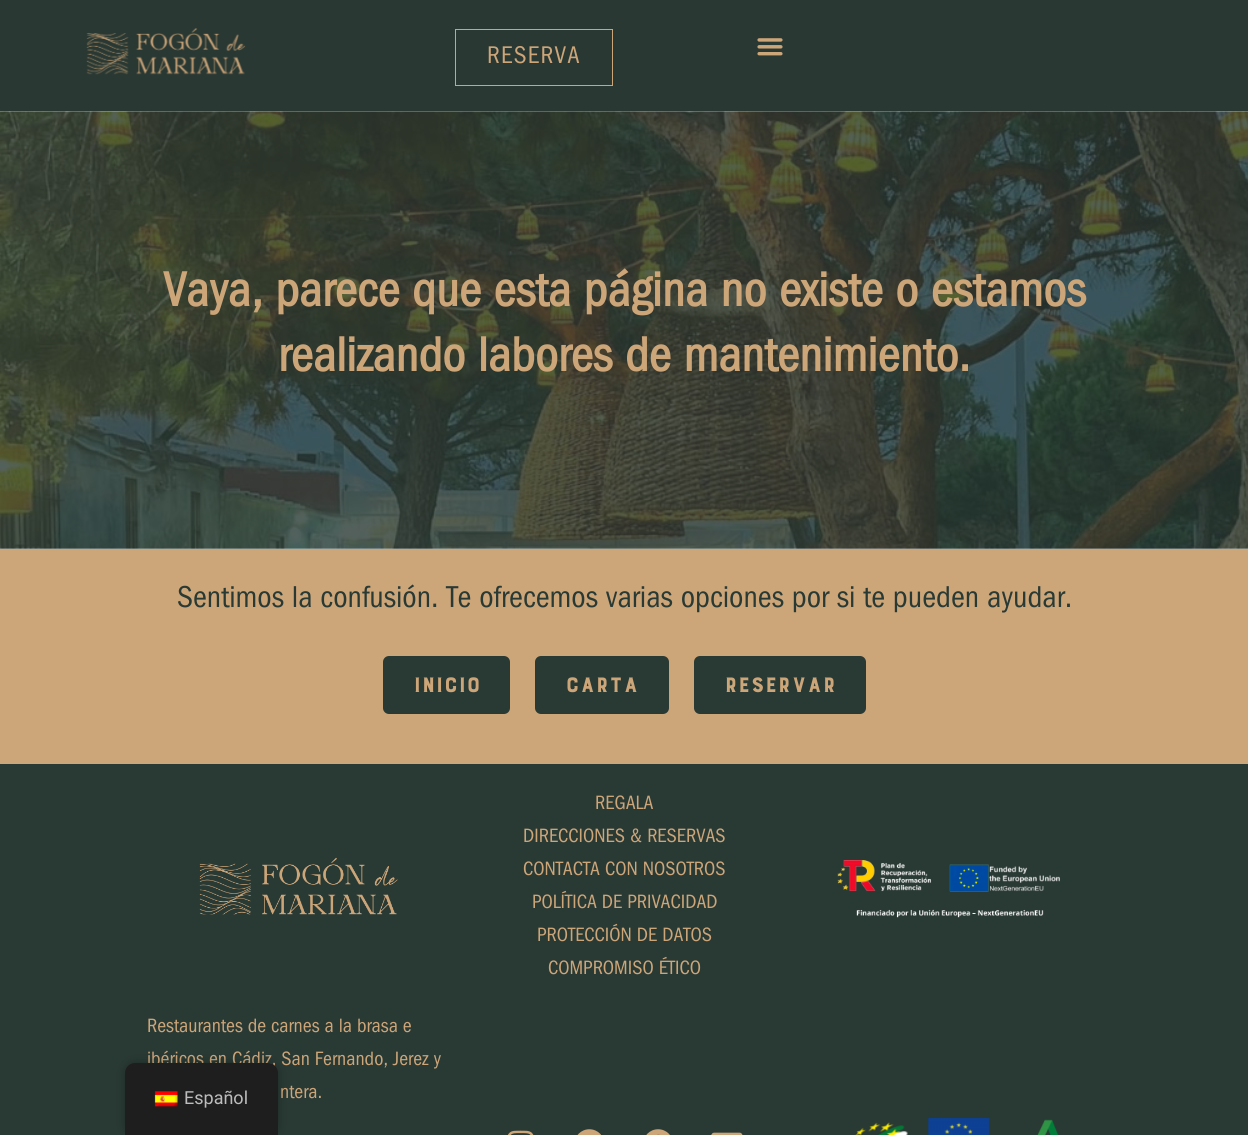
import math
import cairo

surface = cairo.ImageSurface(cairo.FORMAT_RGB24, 1248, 1135)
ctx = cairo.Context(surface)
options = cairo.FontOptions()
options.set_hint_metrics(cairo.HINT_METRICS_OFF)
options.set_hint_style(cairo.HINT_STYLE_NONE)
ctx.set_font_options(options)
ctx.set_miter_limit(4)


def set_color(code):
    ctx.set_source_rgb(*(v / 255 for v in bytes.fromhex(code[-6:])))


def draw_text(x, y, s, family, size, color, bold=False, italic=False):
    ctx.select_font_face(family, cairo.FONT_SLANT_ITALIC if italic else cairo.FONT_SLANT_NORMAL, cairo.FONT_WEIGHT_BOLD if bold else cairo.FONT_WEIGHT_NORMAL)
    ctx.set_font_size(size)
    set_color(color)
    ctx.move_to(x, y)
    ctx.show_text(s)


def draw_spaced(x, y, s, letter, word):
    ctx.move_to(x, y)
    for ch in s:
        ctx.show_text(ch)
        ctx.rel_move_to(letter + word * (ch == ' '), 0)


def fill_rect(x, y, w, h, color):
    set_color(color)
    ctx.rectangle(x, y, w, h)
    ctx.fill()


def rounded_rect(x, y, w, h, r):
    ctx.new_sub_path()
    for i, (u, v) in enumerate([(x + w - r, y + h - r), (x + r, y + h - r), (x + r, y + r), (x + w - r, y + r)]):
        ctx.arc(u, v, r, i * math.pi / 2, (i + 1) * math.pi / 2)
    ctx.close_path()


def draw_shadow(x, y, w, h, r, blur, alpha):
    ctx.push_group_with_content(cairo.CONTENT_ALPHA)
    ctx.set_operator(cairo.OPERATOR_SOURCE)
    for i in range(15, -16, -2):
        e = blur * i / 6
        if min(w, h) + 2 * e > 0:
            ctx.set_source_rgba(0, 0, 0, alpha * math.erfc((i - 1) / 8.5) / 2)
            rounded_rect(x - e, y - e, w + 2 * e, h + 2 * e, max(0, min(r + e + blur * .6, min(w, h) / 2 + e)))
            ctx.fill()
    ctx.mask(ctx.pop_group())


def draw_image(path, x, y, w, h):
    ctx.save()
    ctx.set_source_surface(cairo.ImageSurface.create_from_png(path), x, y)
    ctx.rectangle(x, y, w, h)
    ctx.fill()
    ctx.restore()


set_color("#ffffff")
ctx.paint()
fill_rect(0, 0, 1248, 111, "#293833")
draw_image("assets/img1.png", 86, 28, 160, 47)
ctx.rectangle(455.5, 29.5, 157, 56)
set_color("#cca579")
ctx.set_line_width(1)
ctx.stroke()
ctx.select_font_face("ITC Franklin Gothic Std")
ctx.set_font_size(25)
draw_spaced(487, 63, "RESERVA", 1.25, 0)
draw_image("assets/img2.png", 757, 38, 26, 18)
draw_image("assets/img3.png", 0, 111, 1248, 438)
draw_text(163, 306, "Vaya, parece que esta página no existe o estamos", "ITC Franklin Gothic Std", 50, "#cca579", bold=True)
draw_text(278, 371, "realizando labores de mantenimiento.", "ITC Franklin Gothic Std", 50, "#cca579", bold=True)
fill_rect(0, 549, 1248, 215, "#cca579")
draw_text(177, 607, "Sentimos la confusión. Te ofrecemos varias opciones por si te pueden ayudar.", "ITC Franklin Gothic Std", 31.25, "#293934")
rounded_rect(383, 656, 127, 58, 6)
ctx.fill()
draw_text(413, 692, "INICIO", "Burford", 27.5, "#cca579")
set_color("#293934")
rounded_rect(535, 656, 134, 58, 6)
ctx.fill()
draw_text(565, 692, "CARTA", "Burford", 27.5, "#cca579")
set_color("#293934")
rounded_rect(694, 656, 172, 58, 6)
ctx.fill()
draw_text(724, 692, "RESERVAR", "Burford", 27.5, "#cca579")
fill_rect(0, 764, 1248, 371, "#293934")
draw_image("assets/img4.png", 199, 857, 199, 58)
draw_text(595, 809, "REGALA", "ITC Franklin Gothic Std", 20, "#cca579")
draw_text(523, 842, "DIRECCIONES & RESERVAS", "ITC Franklin Gothic Std", 20, "#cca579")
draw_text(523, 875, "CONTACTA CON NOSOTROS", "ITC Franklin Gothic Std", 20, "#cca579")
draw_text(532, 908, "POLÍTICA DE PRIVACIDAD", "ITC Franklin Gothic Std", 20, "#cca579")
draw_text(537, 941, "PROTECCIÓN DE DATOS", "ITC Franklin Gothic Std", 20, "#cca579")
draw_text(548, 974, "COMPROMISO ÉTICO", "ITC Franklin Gothic Std", 20, "#cca579")
draw_image("assets/img5.png", 837, 860, 223, 58)
draw_text(147, 1032, "Restaurantes de carnes a la brasa e", "ITC Franklin Gothic Std", 20, "#cca579")
draw_text(147, 1065, "ibéricos en Cádiz, San Fernando, Jerez y", "ITC Franklin Gothic Std", 20, "#cca579")
draw_text(280, 1098, "ntera.", "ITC Franklin Gothic Std", 20, "#cca579")
draw_image("assets/img6.png", 508, 1130, 26, 5)
draw_image("assets/img7.png", 577, 1129, 24, 6)
draw_image("assets/img8.png", 646, 1129, 24, 6)
draw_image("assets/img9.png", 711, 1132, 32, 3)
draw_image("assets/img10.png", 855, 1118, 204, 17)
set_color("#000000")
draw_shadow(125, 1063, 153, 72, 10, 5, 0.25)
set_color("#1e1e1e")
ctx.new_path()
ctx.move_to(135, 1063)
ctx.line_to(268, 1063)
ctx.curve_to(273.5, 1063, 278, 1067.5, 278, 1073)
ctx.line_to(278, 1135)
ctx.line_to(125, 1135)
ctx.line_to(125, 1073)
ctx.curve_to(125, 1067.5, 129.5, 1063, 135, 1063)
ctx.close_path()
ctx.fill()
draw_image("assets/img11.png", 154, 1091, 24, 16)
draw_text(184, 1104, "Español", "Roboto", 18, "#bdbdbd")
surface.write_to_png("output.png")
